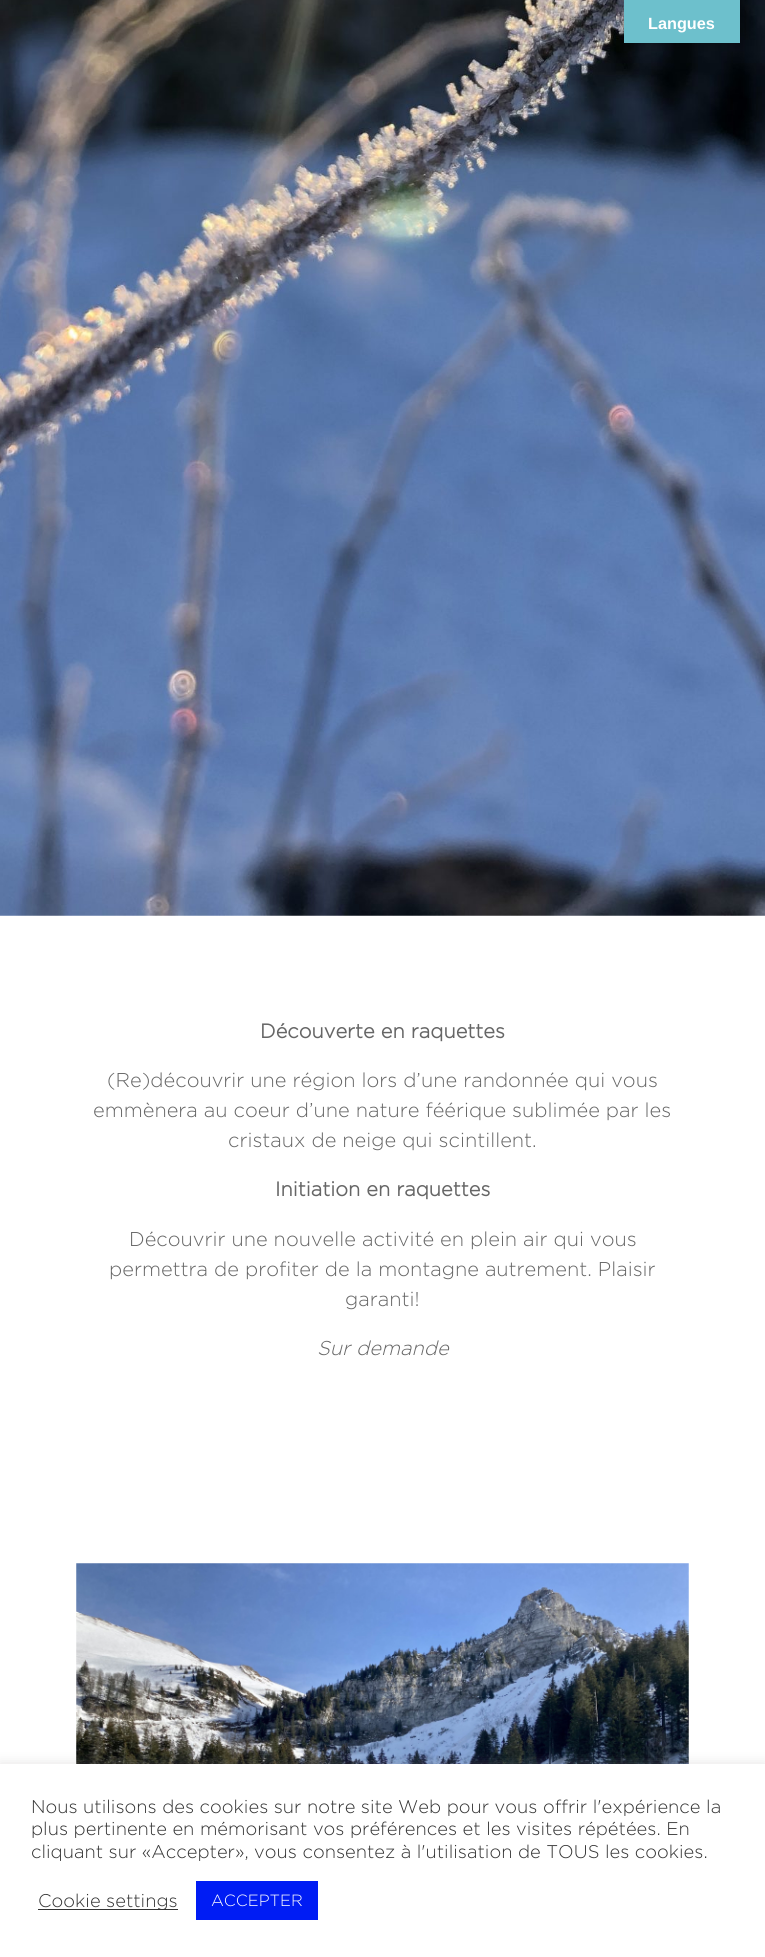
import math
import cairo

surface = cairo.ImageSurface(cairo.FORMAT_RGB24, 765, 1957)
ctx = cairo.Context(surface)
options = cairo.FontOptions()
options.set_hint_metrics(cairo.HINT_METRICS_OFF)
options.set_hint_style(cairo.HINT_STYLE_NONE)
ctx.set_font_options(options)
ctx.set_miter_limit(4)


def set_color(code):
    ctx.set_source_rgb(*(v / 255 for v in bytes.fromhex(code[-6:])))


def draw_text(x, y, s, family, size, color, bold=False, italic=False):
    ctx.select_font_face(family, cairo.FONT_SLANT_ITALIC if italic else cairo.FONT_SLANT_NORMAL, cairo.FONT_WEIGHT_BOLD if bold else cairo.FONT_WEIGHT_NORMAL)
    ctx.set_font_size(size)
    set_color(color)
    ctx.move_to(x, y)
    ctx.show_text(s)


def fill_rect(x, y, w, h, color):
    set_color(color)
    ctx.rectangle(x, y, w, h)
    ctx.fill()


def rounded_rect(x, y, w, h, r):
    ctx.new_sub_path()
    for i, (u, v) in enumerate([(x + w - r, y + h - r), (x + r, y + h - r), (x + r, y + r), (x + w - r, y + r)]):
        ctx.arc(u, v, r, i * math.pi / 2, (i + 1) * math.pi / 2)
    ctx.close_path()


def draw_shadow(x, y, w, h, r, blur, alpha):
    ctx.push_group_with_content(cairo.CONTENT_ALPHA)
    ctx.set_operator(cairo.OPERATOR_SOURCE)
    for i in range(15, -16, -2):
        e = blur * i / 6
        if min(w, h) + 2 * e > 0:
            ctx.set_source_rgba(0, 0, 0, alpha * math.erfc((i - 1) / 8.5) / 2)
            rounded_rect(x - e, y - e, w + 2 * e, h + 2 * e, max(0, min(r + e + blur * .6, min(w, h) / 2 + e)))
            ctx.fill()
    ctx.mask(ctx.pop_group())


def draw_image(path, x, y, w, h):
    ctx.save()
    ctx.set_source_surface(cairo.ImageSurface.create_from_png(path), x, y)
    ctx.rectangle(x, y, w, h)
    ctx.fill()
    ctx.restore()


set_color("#ffffff")
ctx.paint()
draw_image("assets/img1.png", 0, 0, 765, 916)
set_color("#000000")
draw_shadow(624, 0, 116, 43, 0, 5.5, 0.3)
fill_rect(624, 0, 116, 43, "#6dc0cc")
draw_text(648, 29, "Langues", "Liberation Sans", 16.25, "#ffffff", bold=True)
draw_text(260, 1038, "Découverte en raquettes", "Gotham", 20, "#666666", bold=True)
draw_text(107, 1087, "(Re)découvrir une région lors d’une randonnée qui vous", "Gotham Light", 20, "#666666")
draw_text(93, 1117, "emmènera au coeur d’une nature féérique sublimée par les", "Gotham Light", 20, "#666666")
draw_text(228, 1147, "cristaux de neige qui scintillent.", "Gotham Light", 20, "#666666")
draw_text(275, 1196, "Initiation en raquettes", "Gotham", 20, "#666666", bold=True)
draw_text(129, 1246, "Découvrir une nouvelle activité en plein air qui vous", "Gotham Light", 20, "#666666")
draw_text(109, 1276, "permettra de profiter de la montagne autrement. Plaisir", "Gotham Light", 20, "#666666")
draw_text(345, 1306, "garanti!", "Gotham Light", 20, "#666666")
draw_text(317, 1355, "Sur demande", "Gotham Light", 20, "#666666", italic=True)
draw_image("assets/img2.png", 76, 1563, 613, 201)
set_color("#acabab")
draw_shadow(0, 1763, 765, 193, 0, 6, 0.3)
fill_rect(0, 1764, 765, 193, "#ffffff")
draw_text(31, 1813, "Nous utilisons des cookies sur notre site Web pour vous offrir l'expérience la", "Gotham Light", 18.35, "#333333")
draw_text(31, 1835, "plus pertinente en mémorisant vos préférences et les visites répétées. En", "Gotham Light", 18.35, "#333333")
draw_text(31, 1858, "cliquant sur «Accepter», vous consentez à l'utilisation de TOUS les cookies.", "Gotham Light", 18.35, "#333333")
fill_rect(38, 1909, 140, 1, "#333333")
draw_text(38, 1907, "Cookie settings", "Gotham Light", 18.35, "#333333")
fill_rect(196, 1881, 122, 39, "#001cf4")
draw_text(211, 1906, "ACCEPTER", "Gotham Light", 16.25, "#ffffff")
surface.write_to_png("output.png")
